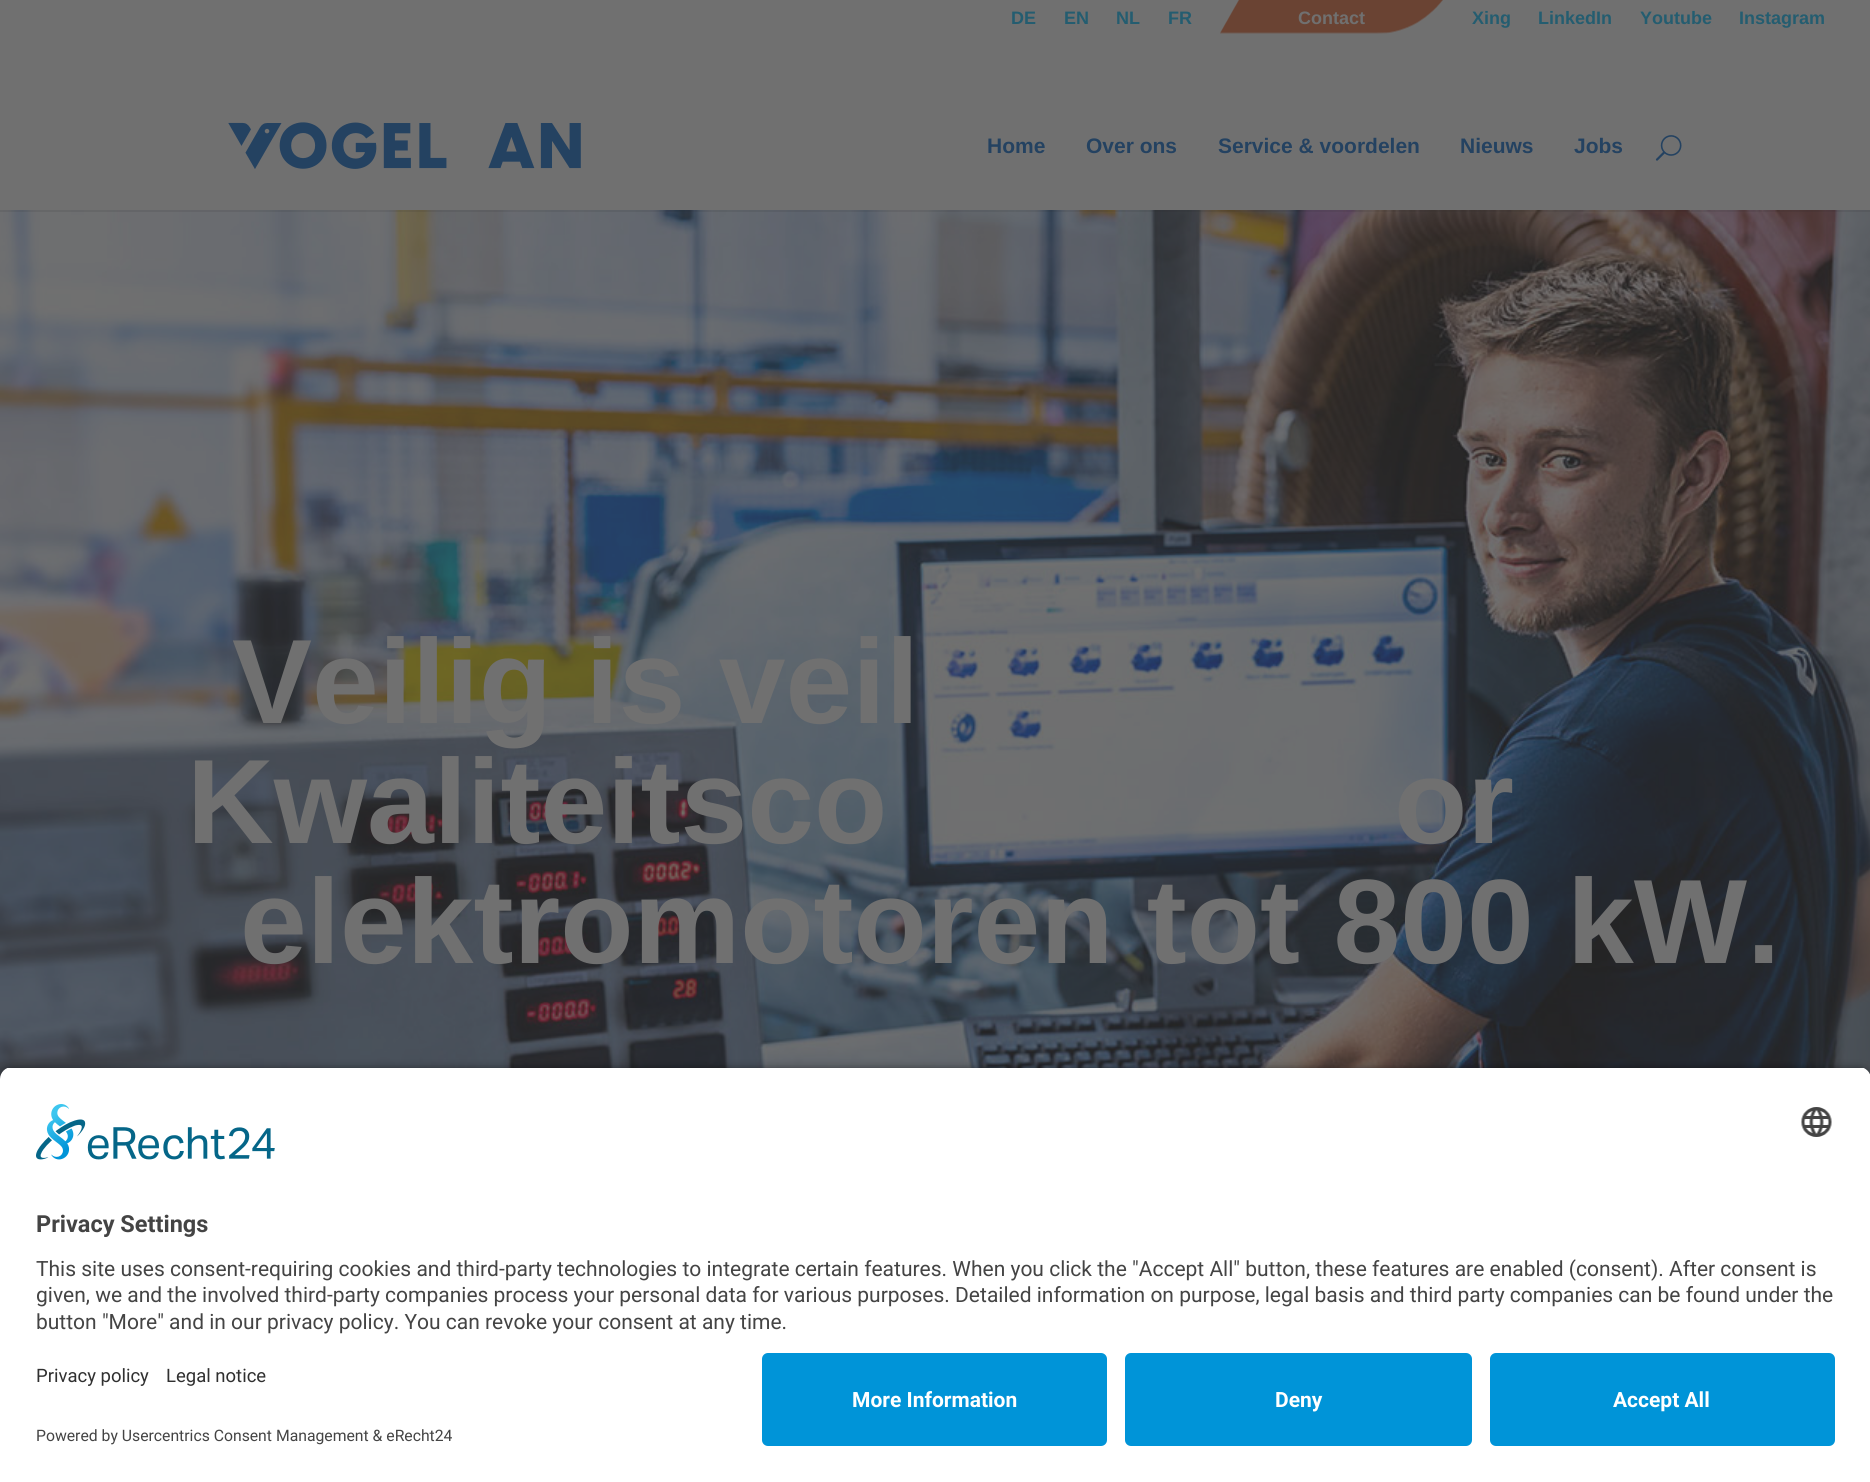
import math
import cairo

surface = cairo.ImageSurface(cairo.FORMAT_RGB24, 1870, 1482)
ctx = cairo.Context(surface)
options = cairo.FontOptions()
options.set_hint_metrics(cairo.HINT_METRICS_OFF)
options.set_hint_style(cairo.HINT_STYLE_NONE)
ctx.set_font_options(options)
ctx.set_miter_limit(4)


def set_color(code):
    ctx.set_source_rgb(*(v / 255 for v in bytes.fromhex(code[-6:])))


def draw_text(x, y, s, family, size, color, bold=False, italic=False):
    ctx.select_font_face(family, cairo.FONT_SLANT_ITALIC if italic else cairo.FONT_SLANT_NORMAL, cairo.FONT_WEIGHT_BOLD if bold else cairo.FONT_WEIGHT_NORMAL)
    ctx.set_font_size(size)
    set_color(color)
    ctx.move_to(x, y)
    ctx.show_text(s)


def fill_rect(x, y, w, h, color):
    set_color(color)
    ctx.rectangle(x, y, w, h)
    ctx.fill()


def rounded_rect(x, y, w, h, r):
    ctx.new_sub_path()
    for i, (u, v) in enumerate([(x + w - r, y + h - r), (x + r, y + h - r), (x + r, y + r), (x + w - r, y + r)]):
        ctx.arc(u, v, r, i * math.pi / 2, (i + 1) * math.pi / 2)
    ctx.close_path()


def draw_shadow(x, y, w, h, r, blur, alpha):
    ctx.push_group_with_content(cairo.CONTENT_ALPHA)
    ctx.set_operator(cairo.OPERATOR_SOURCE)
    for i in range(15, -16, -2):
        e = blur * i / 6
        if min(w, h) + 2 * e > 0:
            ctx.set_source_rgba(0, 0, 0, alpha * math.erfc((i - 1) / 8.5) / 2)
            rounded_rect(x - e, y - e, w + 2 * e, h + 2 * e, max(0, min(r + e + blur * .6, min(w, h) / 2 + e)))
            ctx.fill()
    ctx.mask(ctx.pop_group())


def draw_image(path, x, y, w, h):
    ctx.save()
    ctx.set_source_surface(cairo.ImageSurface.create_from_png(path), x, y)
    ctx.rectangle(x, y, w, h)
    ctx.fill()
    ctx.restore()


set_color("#ffffff")
ctx.paint()
fill_rect(0, 0, 1870, 210, "#707070")
draw_text(1011, 24, "DE", "Liberation Sans", 18, "#245d70", bold=True)
draw_text(1064, 24, "EN", "Liberation Sans", 18, "#245d70", bold=True)
draw_text(1116, 24, "NL", "Liberation Sans", 18, "#245d70", bold=True)
draw_text(1168, 24, "FR", "Liberation Sans", 18, "#245d70", bold=True)
draw_image("assets/img1.png", 1220, 0, 223, 34)
draw_text(1298, 24, "Contact", "Liberation Sans", 18, "#707070", bold=True)
draw_text(1472, 24, "Xing", "Liberation Sans", 18, "#245d70", bold=True)
draw_text(1538, 24, "LinkedIn", "Liberation Sans", 18, "#245d70", bold=True)
draw_text(1640, 24, "Youtube", "Liberation Sans", 18, "#245d70", bold=True)
draw_text(1739, 24, "Instagram", "Liberation Sans", 18, "#245d70", bold=True)
draw_image("assets/img4.png", 0, 210, 1870, 869)
ctx.set_source_rgba(0.141, 0.141, 0.141, 0.1)
ctx.new_path()
ctx.move_to(0, 210)
ctx.line_to(0, 212)
ctx.line_to(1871, 212)
ctx.line_to(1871, 83)
ctx.line_to(1870, 83)
ctx.line_to(1870, 210)
ctx.close_path()
ctx.fill()
draw_image("assets/img2.png", 228, 122, 353, 47)
draw_text(987, 153, "Home", "Liberation Sans", 21, "#244261", bold=True)
draw_text(1086, 153, "Over ons", "Liberation Sans", 21, "#244261", bold=True)
draw_text(1218, 153, "Service & voordelen", "Liberation Sans", 21, "#244261", bold=True)
draw_text(1460, 153, "Nieuws", "Liberation Sans", 21, "#244261", bold=True)
draw_text(1574, 153, "Jobs", "Liberation Sans", 21, "#244261", bold=True)
draw_image("assets/img3.png", 1655, 135, 27, 26)
draw_text(232, 723, "Veilig is veil", "Liberation Sans", 120, "#707070", bold=True)
draw_text(187, 843, "Kwaliteitsco", "Liberation Sans", 120, "#707070", bold=True)
draw_text(1394, 843, "or", "Liberation Sans", 120, "#707070", bold=True)
draw_text(240, 963, "elektromotoren tot 800 kW.", "Liberation Sans", 120, "#707070", bold=True)
set_color("#000000")
draw_shadow(0, 1071, 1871, 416, 12, 5, 0.8)
ctx.save()
ctx.new_path()
ctx.move_to(12, 1067)
ctx.line_to(1859, 1067)
ctx.curve_to(1865.5, 1067, 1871, 1072.5, 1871, 1079)
ctx.line_to(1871, 1341)
ctx.line_to(0, 1341)
ctx.line_to(0, 1079)
ctx.curve_to(0, 1072.5, 5.5, 1067, 12, 1067)
ctx.close_path()
ctx.clip()
fill_rect(0, 1068, 1870, 273, "#ffffff")
ctx.restore()
draw_image("assets/img5.png", 36, 1104, 239, 56)
draw_image("assets/img6.png", 1801, 1107, 31, 30)
draw_text(36, 1232, "Privacy Settings", "Roboto", 23.5, "#444444", bold=True)
draw_text(36, 1276, "This site uses consent-requiring cookies and third-party technologies to integrate certain features. When you click the \"Accept All\" button, these features are enabled (consent). After consent is", "Roboto", 21, "#444444")
draw_text(36, 1302, "given, we and the involved third-party companies process your personal data for various purposes. Detailed information on purpose, legal basis and third party companies can be found under the", "Roboto", 21, "#444444")
draw_text(36, 1329, "button \"More\" and in our privacy policy. You can revoke your consent at any time.", "Roboto", 21, "#444444")
fill_rect(0, 1341, 1870, 141, "#ffffff")
draw_text(36, 1382, "Privacy policy", "Roboto", 18.5, "#303030")
draw_text(166, 1382, "Legal notice", "Roboto", 18.5, "#303030")
draw_text(36, 1441, "Powered by Usercentrics Consent Management & eRecht24", "Roboto", 15.75, "#444444")
set_color("#0094d8")
rounded_rect(762, 1353, 345, 93, 6)
ctx.fill()
draw_text(852, 1407, "More Information", "Roboto", 21, "#ffffff", bold=True)
set_color("#0094d8")
rounded_rect(1125, 1353, 347, 93, 6)
ctx.fill()
draw_text(1275, 1407, "Deny", "Roboto", 21, "#ffffff", bold=True)
set_color("#0094d8")
rounded_rect(1490, 1353, 345, 93, 6)
ctx.fill()
draw_text(1613, 1407, "Accept All", "Roboto", 21, "#ffffff", bold=True)
surface.write_to_png("output.png")
